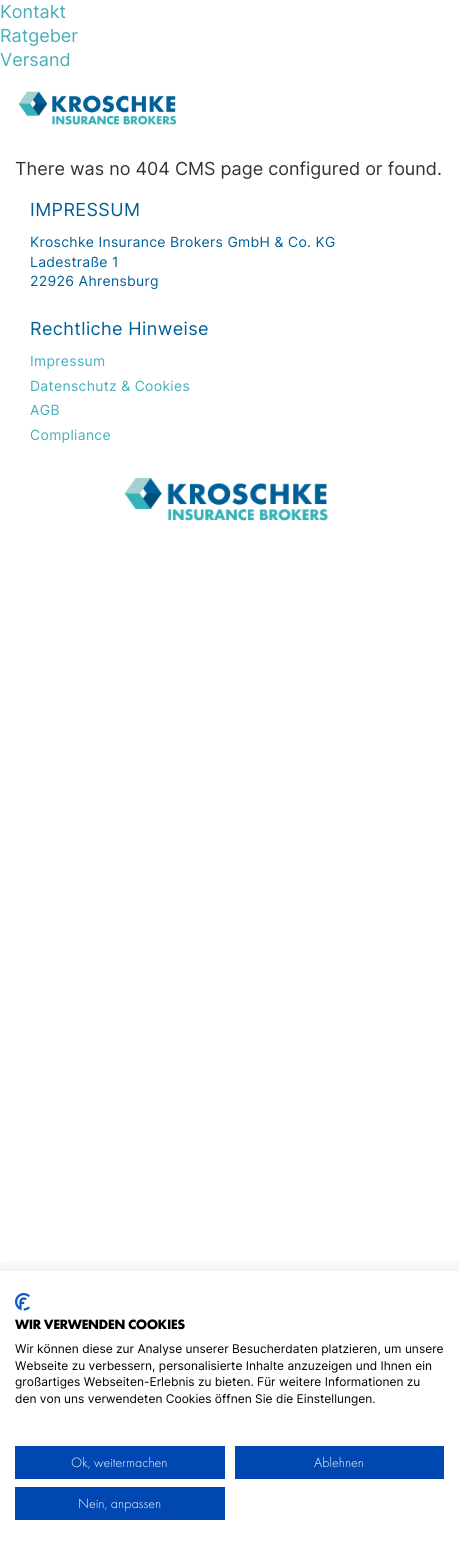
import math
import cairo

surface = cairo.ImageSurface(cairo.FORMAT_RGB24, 459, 1547)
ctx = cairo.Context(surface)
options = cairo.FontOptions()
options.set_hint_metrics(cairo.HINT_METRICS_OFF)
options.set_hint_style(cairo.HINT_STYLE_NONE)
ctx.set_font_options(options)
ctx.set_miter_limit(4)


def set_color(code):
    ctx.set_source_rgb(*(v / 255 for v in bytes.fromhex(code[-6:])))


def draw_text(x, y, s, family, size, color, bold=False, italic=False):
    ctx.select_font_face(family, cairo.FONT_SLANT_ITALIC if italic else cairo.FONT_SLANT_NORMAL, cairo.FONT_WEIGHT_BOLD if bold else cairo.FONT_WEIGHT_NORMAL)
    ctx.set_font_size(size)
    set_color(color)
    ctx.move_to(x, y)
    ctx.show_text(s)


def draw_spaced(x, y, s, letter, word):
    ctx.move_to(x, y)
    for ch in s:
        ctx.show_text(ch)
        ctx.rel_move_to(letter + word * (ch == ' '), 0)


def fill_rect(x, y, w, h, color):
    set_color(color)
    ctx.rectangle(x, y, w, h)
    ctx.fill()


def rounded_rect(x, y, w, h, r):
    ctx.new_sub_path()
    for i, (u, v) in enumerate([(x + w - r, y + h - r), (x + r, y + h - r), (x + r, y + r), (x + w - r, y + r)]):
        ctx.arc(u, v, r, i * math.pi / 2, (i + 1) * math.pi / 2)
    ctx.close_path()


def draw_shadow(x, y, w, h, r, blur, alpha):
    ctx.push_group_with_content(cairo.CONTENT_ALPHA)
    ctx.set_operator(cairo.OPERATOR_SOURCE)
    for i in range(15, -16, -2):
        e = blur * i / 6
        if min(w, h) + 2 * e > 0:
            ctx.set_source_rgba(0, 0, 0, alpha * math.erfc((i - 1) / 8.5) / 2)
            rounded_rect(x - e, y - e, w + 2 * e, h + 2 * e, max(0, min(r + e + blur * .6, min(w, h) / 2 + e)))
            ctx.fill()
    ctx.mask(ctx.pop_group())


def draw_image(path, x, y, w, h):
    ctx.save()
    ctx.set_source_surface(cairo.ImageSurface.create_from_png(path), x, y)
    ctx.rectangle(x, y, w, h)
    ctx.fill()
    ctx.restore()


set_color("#ffffff")
ctx.paint()
draw_text(0, 18, "Kontakt", "Inter", 18, "#46afb9")
draw_text(0, 42, "Ratgeber", "Inter", 18, "#46afb9")
draw_text(0, 66, "Versand", "Inter", 18, "#46afb9")
draw_image("assets/img1.png", 18, 91, 158, 34)
draw_text(15, 175, "There was no 404 CMS page configured or found.", "Inter", 18, "#333333")
set_color("#005f96")
draw_spaced(30, 216, "IMPRESSUM", 0.4, 0)
ctx.set_font_size(14)
draw_spaced(30, 247, "Kroschke Insurance Brokers GmbH & Co. KG", 0.3, 0)
draw_spaced(30, 267, "Ladestraße 1", 0.3, 0)
draw_spaced(30, 286, "22926 Ahrensburg", 0.3, 0)
ctx.set_font_size(18)
draw_spaced(30, 335, "Rechtliche Hinweise", 0.4, 0)
ctx.set_font_size(14)
set_color("#46afb9")
draw_spaced(30, 366, "Impressum", 0.3, 0)
draw_spaced(30, 391, "Datenschutz & Cookies", 0.3, 0)
draw_spaced(30, 415, "AGB", 0.3, 0)
draw_spaced(30, 440, "Compliance", 0.3, 0)
draw_image("assets/img2.png", 124, 478, 204, 43)
ctx.save()
ctx.rectangle(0, 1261, 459, 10)
ctx.clip()
set_color("#000000")
draw_shadow(0, 1271, 459, 276, 0, 12, 0.1)
ctx.restore()
draw_image("assets/img3.png", 15, 1293, 15, 18)
ctx.select_font_face("futura")
set_color("#000000")
draw_spaced(15, 1329, "WIR VERWENDEN COOKIES", -0.5, 0)
draw_text(15, 1353, "Wir können diese zur Analyse unserer Besucherdaten platzieren, um unsere", "Inter", 12, "#000000")
draw_text(15, 1370, "Webseite zu verbessern, personalisierte Inhalte anzuzeigen und Ihnen ein", "Inter", 12, "#000000")
draw_text(15, 1386, "großartiges Webseiten-Erlebnis zu bieten. Für weitere Informationen zu", "Inter", 12, "#000000")
draw_text(15, 1403, "den von uns verwendeten Cookies öffnen Sie die Einstellungen.", "Inter", 12, "#000000")
fill_rect(15, 1446, 210, 33, "#0047b2")
draw_text(71, 1467, "Ok, weitermachen", "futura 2", 14, "#ffffff")
fill_rect(235, 1446, 209, 33, "#0047b2")
draw_text(314, 1467, "Ablehnen", "futura 2", 14, "#ffffff")
fill_rect(15, 1487, 210, 33, "#0047b2")
draw_text(78, 1508, "Nein, anpassen", "futura 2", 14, "#ffffff")
surface.write_to_png("output.png")
